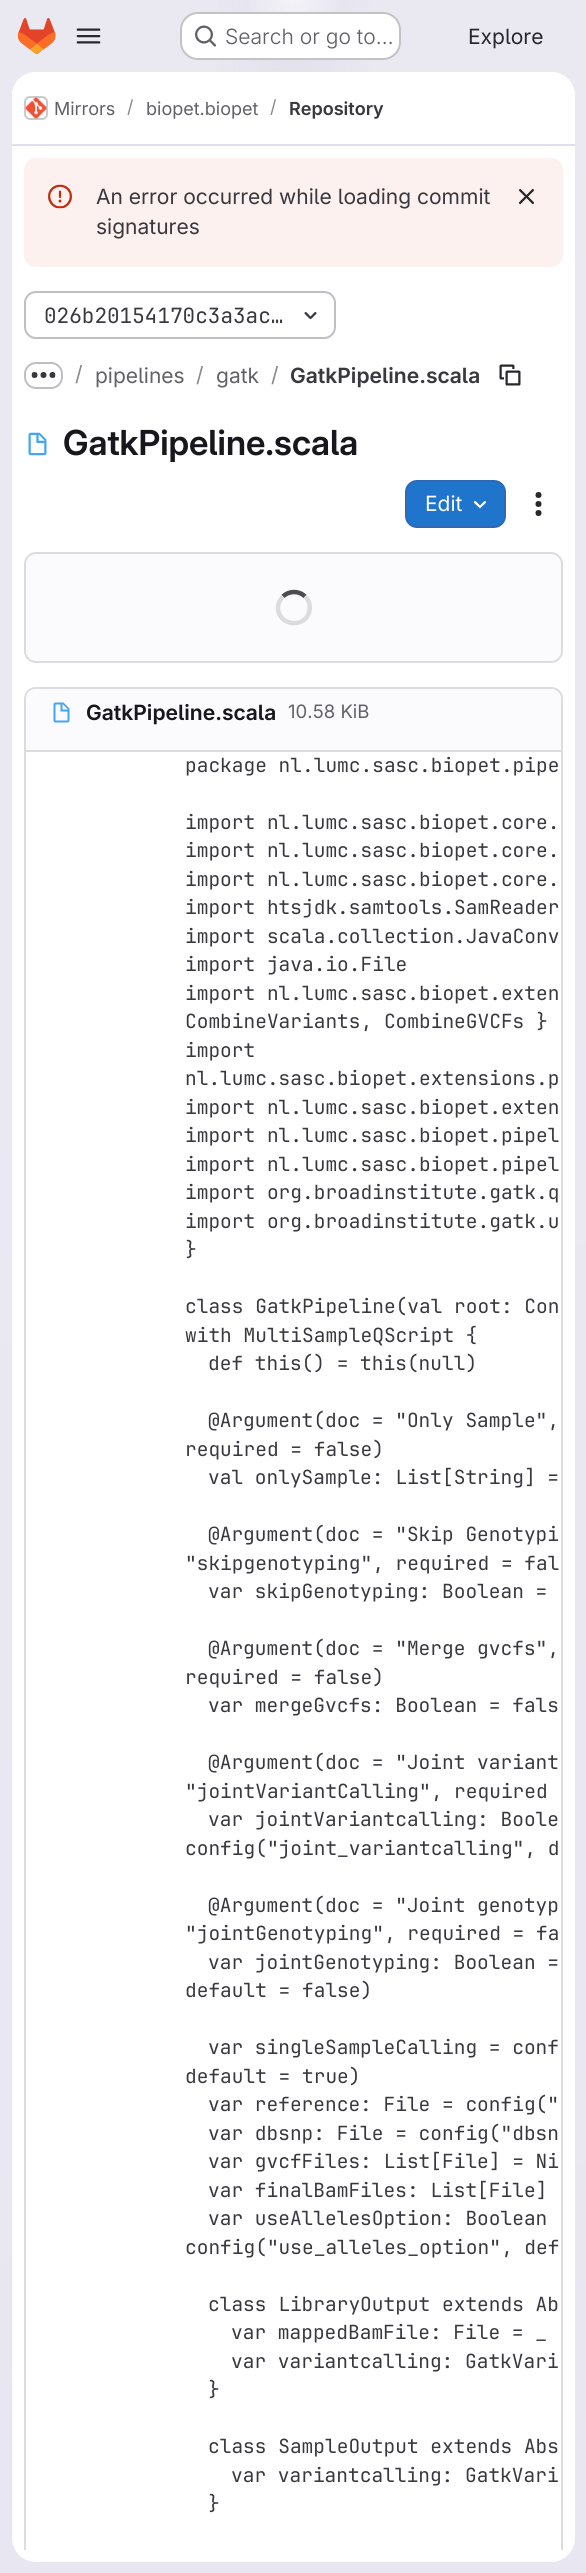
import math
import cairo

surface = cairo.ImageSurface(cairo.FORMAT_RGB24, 586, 2573)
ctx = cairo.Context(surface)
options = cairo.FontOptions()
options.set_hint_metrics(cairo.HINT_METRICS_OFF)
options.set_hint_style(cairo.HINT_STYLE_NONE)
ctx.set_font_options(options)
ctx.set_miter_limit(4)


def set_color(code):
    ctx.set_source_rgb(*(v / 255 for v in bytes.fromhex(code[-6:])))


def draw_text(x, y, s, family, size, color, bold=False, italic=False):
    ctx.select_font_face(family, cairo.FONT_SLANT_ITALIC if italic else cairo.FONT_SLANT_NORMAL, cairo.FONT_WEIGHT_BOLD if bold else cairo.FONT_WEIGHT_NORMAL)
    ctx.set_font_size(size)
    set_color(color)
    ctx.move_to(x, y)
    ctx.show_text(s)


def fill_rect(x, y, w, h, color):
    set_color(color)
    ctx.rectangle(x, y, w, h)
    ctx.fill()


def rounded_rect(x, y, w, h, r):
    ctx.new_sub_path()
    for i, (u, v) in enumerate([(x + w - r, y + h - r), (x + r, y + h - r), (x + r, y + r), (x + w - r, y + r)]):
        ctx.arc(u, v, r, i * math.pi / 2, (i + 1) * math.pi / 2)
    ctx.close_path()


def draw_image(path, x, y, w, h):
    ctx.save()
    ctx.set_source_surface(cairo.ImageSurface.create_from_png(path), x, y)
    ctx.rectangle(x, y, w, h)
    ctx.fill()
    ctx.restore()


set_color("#ffffff")
ctx.paint()
gradient = cairo.LinearGradient(522, 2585, 64, -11)
gradient.add_color_stop_rgba(0, 0.91, 0.902, 0.941, 1)
gradient.add_color_stop_rgba(0.7, 0.918, 0.914, 0.949, 1)
ctx.set_source(gradient)
ctx.rectangle(0, 0, 586, 2573)
ctx.fill()
gradient = cairo.RadialGradient(0, 0, 0, 0, 0, 1)
gradient.set_matrix(cairo.Matrix(1 / 293, 0, 0, 1 / 2574, -1 * 293 / 293, -1 * 0 / 2574))
gradient.add_color_stop_rgba(0, 0.894, 0.886, 0.929, 1)
gradient.add_color_stop_rgba(0.36, 0.894, 0.886, 0.929, 0)
ctx.set_source(gradient)
ctx.rectangle(217, 0, 152, 72)
ctx.fill()
gradient = cairo.RadialGradient(0, 0, 0, 0, 0, 1)
gradient.set_matrix(cairo.Matrix(1 / 293, 0, 0, 1 / 2574, -1 * 293 / 293, -1 * 0 / 2574))
gradient.add_color_stop_rgba(0, 0.894, 0.886, 0.925, 1)
gradient.add_color_stop_rgba(0.26, 0.894, 0.886, 0.925, 0)
ctx.set_source(gradient)
ctx.rectangle(258, 28, 70, 43)
ctx.fill()
gradient = cairo.RadialGradient(293, 0, 0, 293, 0, 2591)
gradient.add_color_stop_rgba(0, 1, 1, 1, 0.6)
gradient.add_color_stop_rgba(0.02, 1, 1, 1, 0)
ctx.set_source(gradient)
ctx.rectangle(249, 0, 88, 12)
ctx.fill()
draw_image("assets/img1.png", 18, 18, 38, 36)
draw_image("assets/img2.png", 76, 28, 25, 16)
set_color("#ffffff")
rounded_rect(180, 12, 221, 48, 18)
ctx.fill()
rounded_rect(181, 13, 219, 46, 17)
ctx.set_source_rgba(0.02, 0.02, 0.024, 0.24)
ctx.stroke()
draw_image("assets/img3.png", 195, 25, 21, 22)
draw_text(225, 44, "Search or go to…", "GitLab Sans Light", 21, "#626168")
draw_text(468, 44, "Explore", "GitLab Sans", 21, "#28272d")
set_color("#ffffff")
rounded_rect(12, 72, 563, 2490, 24)
ctx.fill()
ctx.new_path()
ctx.move_to(36, 72)
ctx.line_to(551, 72)
ctx.curve_to(564.5, 72, 575, 82.5, 575, 96)
ctx.line_to(575, 146)
ctx.line_to(12, 146)
ctx.line_to(12, 96)
ctx.curve_to(12, 82.5, 22.5, 72, 36, 72)
ctx.close_path()
ctx.fill()
fill_rect(12, 144, 563, 2, "#e1dfec")
rounded_rect(25, 97, 22, 22, 5)
set_color("#dcdcde")
ctx.stroke()
draw_image("assets/img4.png", 25, 97, 22, 22)
rounded_rect(25, 97, 22, 22, 5)
ctx.set_source_rgba(0.02, 0.02, 0.024, 0.08)
ctx.stroke()
draw_text(54, 115, "Mirrors", "GitLab Sans", 18, "#626168")
draw_text(127, 113, "/", "GitLab Sans", 18, "#89888d")
draw_text(146, 115, "biopet.biopet", "GitLab Sans", 18, "#626168")
draw_text(270, 113, "/", "GitLab Sans", 18, "#89888d")
draw_text(289, 115, "Repository", "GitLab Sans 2 SemiBold", 18, "#3a383f")
set_color("#fcf1ef")
rounded_rect(24, 158, 539, 109, 12)
ctx.fill()
draw_image("assets/img5.png", 48, 184, 24, 25)
draw_text(96, 204, "An error occurred while loading commit", "GitLab Sans", 21, "#3a383f")
draw_text(96, 234, "signatures", "GitLab Sans", 21, "#3a383f")
draw_image("assets/img6.png", 519, 189, 15, 15)
rounded_rect(25, 292, 310, 46, 11)
set_color("#bfbfc3")
ctx.stroke()
draw_text(44, 323, "026b20154170c3a3ac…", "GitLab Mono", 21, "#3a383f")
draw_image("assets/img7.png", 304, 312, 13, 8)
rounded_rect(25, 363, 37, 25, 11)
set_color("#bfbfc3")
ctx.stroke()
draw_image("assets/img8.png", 31, 372, 25, 6)
draw_text(75, 381, "/", "GitLab Sans", 21, "#89888d")
draw_text(95, 383, "pipelines", "GitLab Sans", 21, "#626168")
draw_text(196, 382, "/", "GitLab Sans", 21, "#89888d")
draw_text(216, 383, "gatk", "GitLab Sans", 21, "#626168")
draw_text(271, 382, "/", "GitLab Sans", 21, "#89888d")
draw_text(290, 383, "GatkPipeline.scala", "GitLab Sans 2 SemiBold", 21, "#3a383f")
draw_image("assets/img9.png", 499, 364, 22, 22)
draw_image("assets/img10.png", 28, 432, 19, 24)
draw_text(63, 455, "GatkPipeline.scala", "GitLab Sans SemiBold", 34.5, "#18171d")
set_color("#1f75cb")
rounded_rect(406, 481, 99, 46, 11)
ctx.fill_preserve()
set_color("#2f68b4")
ctx.stroke()
draw_text(425, 511, "Edit", "GitLab Sans", 21, "#ffffff")
draw_image("assets/img11.png", 474, 501, 12, 8)
draw_image("assets/img12.png", 535, 492, 7, 24)
set_color("#fbfafd")
rounded_rect(25, 553, 537, 109, 11)
ctx.fill_preserve()
set_color("#dcdcde")
ctx.stroke()
ctx.new_path()
ctx.move_to(283, 596.5)
ctx.curve_to(289, 590.5, 299, 590.5, 305, 596.5)
set_color("#4c4b51")
ctx.set_line_width(4.5)
ctx.stroke()
ctx.new_path()
ctx.move_to(305, 596.5)
ctx.curve_to(309, 600, 310.5, 605.5, 309.5, 610.5)
ctx.curve_to(306, 629, 278, 626.5, 278, 607.5)
ctx.curve_to(278, 603.5, 280, 599.5, 283, 596.5)
set_color("#dcdcde")
ctx.stroke()
ctx.save()
ctx.rectangle(12, 146, 563, 2404)
ctx.clip()
ctx.new_path()
ctx.move_to(36, 687)
ctx.curve_to(29, 687, 24, 692, 24, 699)
ctx.line_to(24, 2559)
ctx.line_to(26, 2560)
ctx.line_to(26, 699)
ctx.curve_to(26, 693, 30, 689, 36, 689)
ctx.line_to(551, 689)
ctx.curve_to(557, 689, 561, 693, 561, 699)
ctx.line_to(561, 2560)
ctx.line_to(563, 2559)
ctx.line_to(563, 699)
ctx.curve_to(563, 692, 558, 687, 551, 687)
ctx.close_path()
ctx.fill()
ctx.restore()
set_color("#fbfafd")
ctx.new_path()
ctx.move_to(37, 689)
ctx.line_to(550, 689)
ctx.curve_to(556, 689, 561, 694, 561, 700)
ctx.line_to(561, 752)
ctx.line_to(26, 752)
ctx.line_to(26, 700)
ctx.curve_to(26, 694, 31, 689, 37, 689)
ctx.close_path()
ctx.fill()
fill_rect(26, 750, 535, 2, "#dcdcde")
draw_image("assets/img13.png", 53, 702, 17, 21)
draw_text(86, 720, "GatkPipeline.scala", "GitLab Sans 2 SemiBold", 21, "#18171d")
draw_text(288, 718, "10.58 KiB", "GitLab Sans", 18.5, "#626168")
draw_text(185, 772, "package nl.lumc.sasc.biopet.pipe", "GitLab Mono", 19.5, "#3a383f")
draw_text(185, 829, "import nl.lumc.sasc.biopet.core.", "GitLab Mono", 19.5, "#3a383f")
draw_text(185, 857, "import nl.lumc.sasc.biopet.core.", "GitLab Mono", 19.5, "#3a383f")
draw_text(185, 886, "import nl.lumc.sasc.biopet.core.", "GitLab Mono", 19.5, "#3a383f")
draw_text(185, 914, "import htsjdk.samtools.SamReader", "GitLab Mono", 19.5, "#3a383f")
draw_text(185, 943, "import scala.collection.JavaConv", "GitLab Mono", 19.5, "#3a383f")
draw_text(185, 971, "import java.io.File", "GitLab Mono", 19.5, "#3a383f")
draw_text(185, 1000, "import nl.lumc.sasc.biopet.exten", "GitLab Mono", 19.5, "#3a383f")
draw_text(185, 1028, "CombineVariants, CombineGVCFs }", "GitLab Mono", 19.5, "#3a383f")
draw_text(185, 1057, "import", "GitLab Mono", 19.5, "#3a383f")
draw_text(185, 1085, "nl.lumc.sasc.biopet.extensions.p", "GitLab Mono", 19.5, "#3a383f")
draw_text(185, 1114, "import nl.lumc.sasc.biopet.exten", "GitLab Mono", 19.5, "#3a383f")
draw_text(185, 1142, "import nl.lumc.sasc.biopet.pipel", "GitLab Mono", 19.5, "#3a383f")
draw_text(185, 1171, "import nl.lumc.sasc.biopet.pipel", "GitLab Mono", 19.5, "#3a383f")
draw_text(185, 1199, "import org.broadinstitute.gatk.q", "GitLab Mono", 19.5, "#3a383f")
draw_text(185, 1228, "import org.broadinstitute.gatk.u", "GitLab Mono", 19.5, "#3a383f")
draw_text(185, 1256, "}", "GitLab Mono", 19.5, "#3a383f")
draw_text(185, 1313, "class GatkPipeline(val root: Con", "GitLab Mono", 19.5, "#3a383f")
draw_text(185, 1342, "with MultiSampleQScript {", "GitLab Mono", 19.5, "#3a383f")
draw_text(208, 1370, "def this() = this(null)", "GitLab Mono", 19.5, "#3a383f")
draw_text(208, 1427, "@Argument(doc = \"Only Sample\",", "GitLab Mono", 19.5, "#3a383f")
draw_text(185, 1456, "required = false)", "GitLab Mono", 19.5, "#3a383f")
draw_text(208, 1484, "val onlySample: List[String] =", "GitLab Mono", 19.5, "#3a383f")
draw_text(208, 1541, "@Argument(doc = \"Skip Genotypi", "GitLab Mono", 19.5, "#3a383f")
draw_text(185, 1570, "\"skipgenotyping\", required = fal", "GitLab Mono", 19.5, "#3a383f")
draw_text(208, 1598, "var skipGenotyping: Boolean =", "GitLab Mono", 19.5, "#3a383f")
draw_text(208, 1655, "@Argument(doc = \"Merge gvcfs\",", "GitLab Mono", 19.5, "#3a383f")
draw_text(185, 1684, "required = false)", "GitLab Mono", 19.5, "#3a383f")
draw_text(208, 1712, "var mergeGvcfs: Boolean = fals", "GitLab Mono", 19.5, "#3a383f")
draw_text(208, 1769, "@Argument(doc = \"Joint variant", "GitLab Mono", 19.5, "#3a383f")
draw_text(185, 1798, "\"jointVariantCalling\", required", "GitLab Mono", 19.5, "#3a383f")
draw_text(208, 1826, "var jointVariantcalling: Boole", "GitLab Mono", 19.5, "#3a383f")
draw_text(185, 1855, "config(\"joint_variantcalling\", d", "GitLab Mono", 19.5, "#3a383f")
draw_text(208, 1912, "@Argument(doc = \"Joint genotyp", "GitLab Mono", 19.5, "#3a383f")
draw_text(185, 1940, "\"jointGenotyping\", required = fa", "GitLab Mono", 19.5, "#3a383f")
draw_text(208, 1969, "var jointGenotyping: Boolean =", "GitLab Mono", 19.5, "#3a383f")
draw_text(185, 1997, "default = false)", "GitLab Mono", 19.5, "#3a383f")
draw_text(208, 2054, "var singleSampleCalling = conf", "GitLab Mono", 19.5, "#3a383f")
draw_text(185, 2083, "default = true)", "GitLab Mono", 19.5, "#3a383f")
draw_text(208, 2111, "var reference: File = config(\"", "GitLab Mono", 19.5, "#3a383f")
draw_text(208, 2140, "var dbsnp: File = config(\"dbsn", "GitLab Mono", 19.5, "#3a383f")
draw_text(208, 2168, "var gvcfFiles: List[File] = Ni", "GitLab Mono", 19.5, "#3a383f")
draw_text(208, 2197, "var finalBamFiles: List[File]", "GitLab Mono", 19.5, "#3a383f")
draw_text(208, 2225, "var useAllelesOption: Boolean", "GitLab Mono", 19.5, "#3a383f")
draw_text(185, 2254, "config(\"use_alleles_option\", def", "GitLab Mono", 19.5, "#3a383f")
draw_text(208, 2311, "class LibraryOutput extends Ab", "GitLab Mono", 19.5, "#3a383f")
draw_text(231, 2339, "var mappedBamFile: File = _", "GitLab Mono", 19.5, "#3a383f")
draw_text(231, 2368, "var variantcalling: GatkVari", "GitLab Mono", 19.5, "#3a383f")
draw_text(208, 2396, "}", "GitLab Mono", 19.5, "#3a383f")
draw_text(208, 2453, "class SampleOutput extends Abs", "GitLab Mono", 19.5, "#3a383f")
draw_text(231, 2482, "var variantcalling: GatkVari", "GitLab Mono", 19.5, "#3a383f")
draw_text(208, 2510, "}", "GitLab Mono", 19.5, "#3a383f")
surface.write_to_png("output.png")
